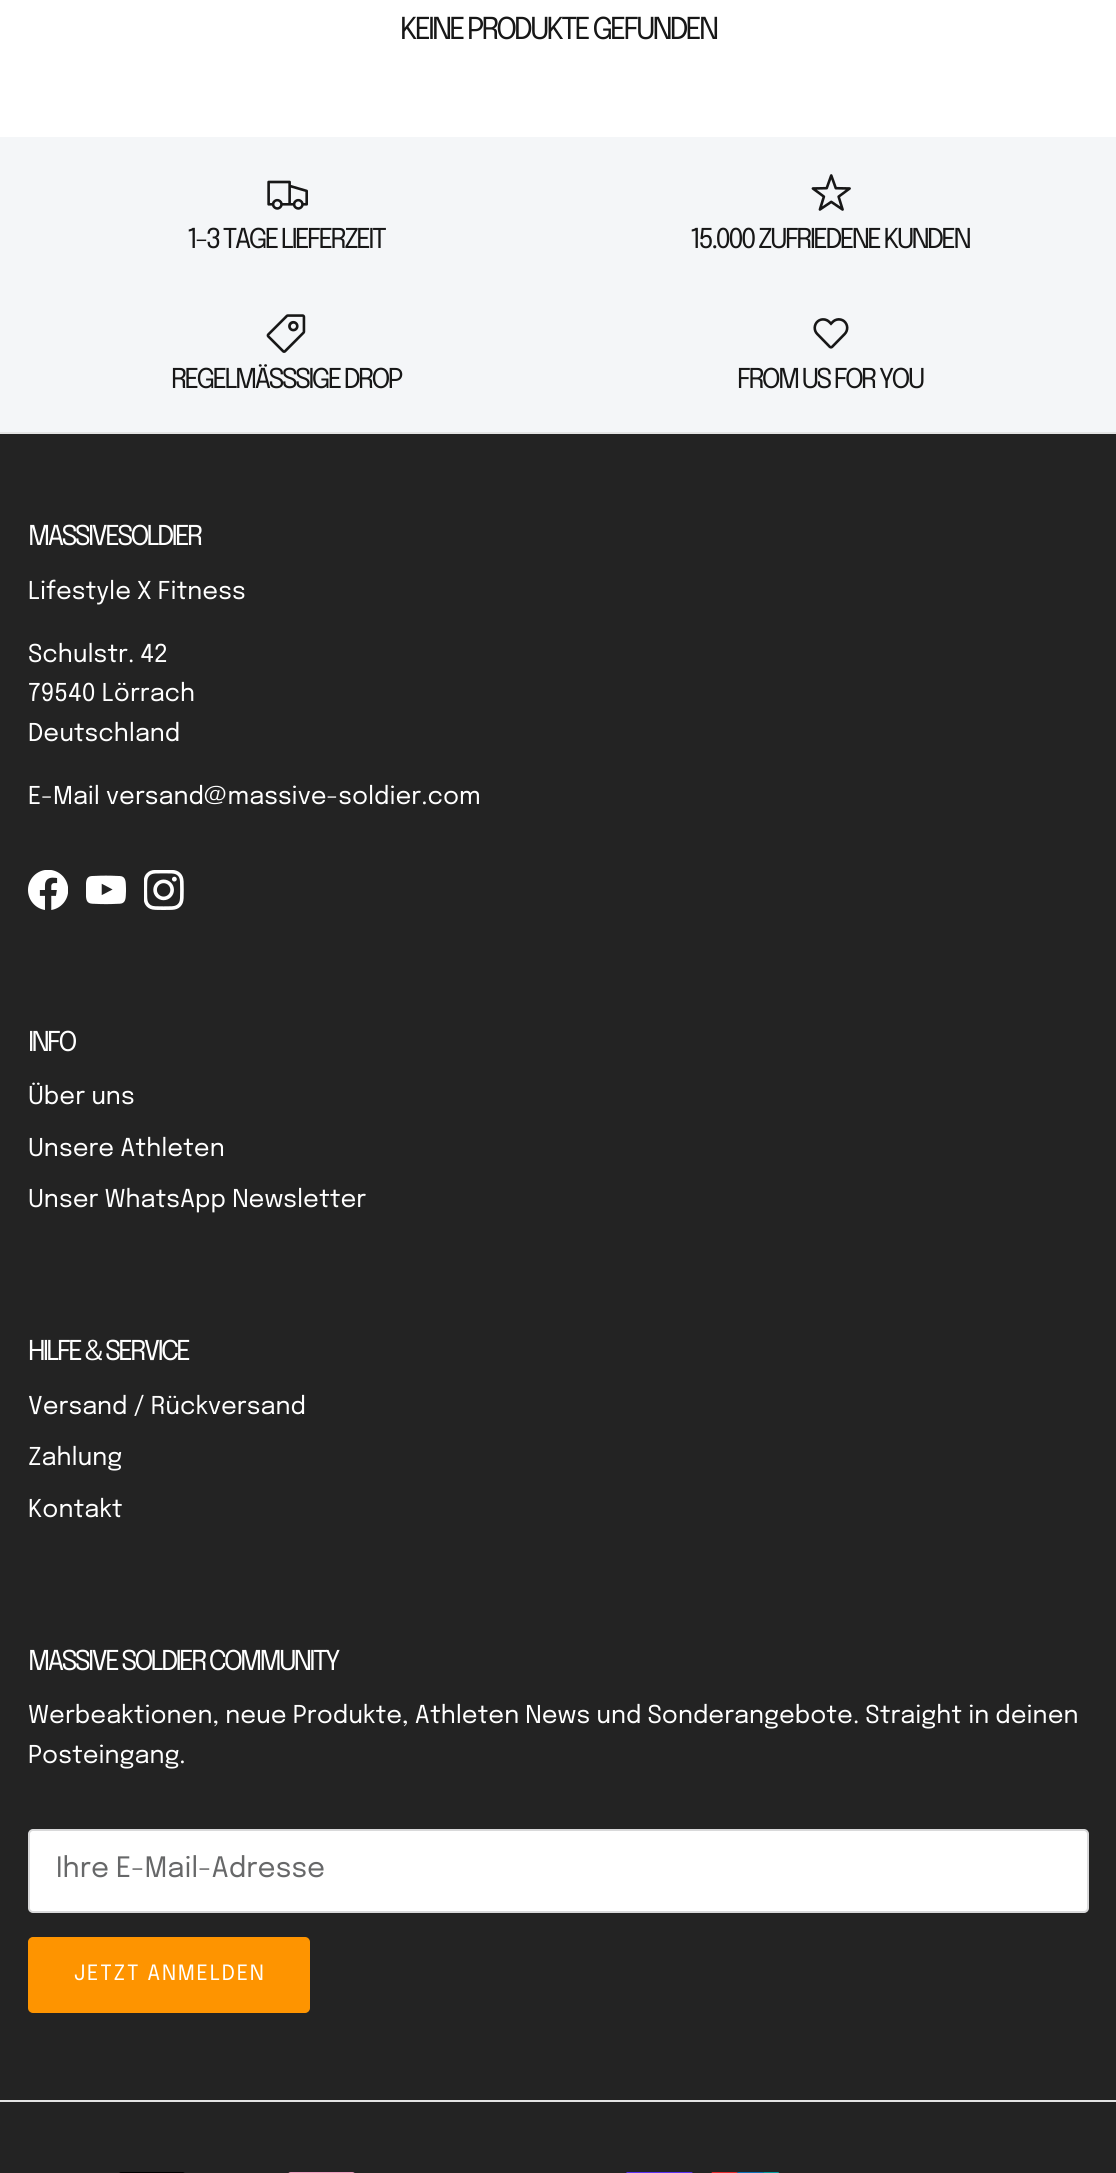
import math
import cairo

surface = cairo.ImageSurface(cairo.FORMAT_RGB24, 1116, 2173)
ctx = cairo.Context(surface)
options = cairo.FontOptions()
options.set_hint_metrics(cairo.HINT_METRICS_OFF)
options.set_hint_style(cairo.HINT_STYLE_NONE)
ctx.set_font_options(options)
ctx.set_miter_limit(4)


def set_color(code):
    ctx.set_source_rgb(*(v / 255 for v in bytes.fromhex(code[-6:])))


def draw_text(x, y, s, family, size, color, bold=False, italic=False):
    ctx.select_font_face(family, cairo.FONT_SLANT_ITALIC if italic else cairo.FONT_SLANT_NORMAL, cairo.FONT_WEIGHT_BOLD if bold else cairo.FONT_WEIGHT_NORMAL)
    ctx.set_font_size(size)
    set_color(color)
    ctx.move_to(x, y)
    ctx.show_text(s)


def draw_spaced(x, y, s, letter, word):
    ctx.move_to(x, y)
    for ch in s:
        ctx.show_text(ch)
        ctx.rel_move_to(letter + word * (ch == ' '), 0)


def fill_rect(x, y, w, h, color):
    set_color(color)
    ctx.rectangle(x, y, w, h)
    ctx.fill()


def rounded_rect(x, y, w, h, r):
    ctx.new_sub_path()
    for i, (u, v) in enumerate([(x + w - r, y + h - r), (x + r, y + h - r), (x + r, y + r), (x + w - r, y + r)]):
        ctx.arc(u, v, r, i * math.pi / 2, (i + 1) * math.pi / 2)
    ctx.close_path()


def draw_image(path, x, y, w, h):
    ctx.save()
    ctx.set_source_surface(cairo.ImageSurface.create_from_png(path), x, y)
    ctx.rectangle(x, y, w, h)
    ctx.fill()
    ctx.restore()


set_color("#ffffff")
ctx.paint()
ctx.select_font_face("Epilogue")
ctx.set_font_size(30.1)
set_color("#171717")
draw_spaced(400, 39, "KEINE PRODUKTE GEFUNDEN", -3, 0)
fill_rect(0, 137, 1116, 295, "#f4f6f8")
draw_image("assets/img1.png", 267, 180, 41, 30)
ctx.set_font_size(27.25)
set_color("#171717")
draw_spaced(187, 248, "1-3 TAGE LIEFERZEIT", -2.75, 0)
draw_image("assets/img2.png", 811, 174, 40, 37)
draw_spaced(690, 248, "15.000 ZUFRIEDENE KUNDEN", -2.75, 0)
draw_image("assets/img3.png", 266, 314, 40, 39)
draw_spaced(171, 388, "REGELMÄSSSIGE DROP", -2.75, 0)
draw_image("assets/img4.png", 813, 318, 36, 31)
draw_spaced(737, 388, "FROM US FOR YOU", -2.75, 0)
fill_rect(0, 434, 1116, 1739, "#232323")
fill_rect(0, 432, 1116, 2, "#e4e4e4")
set_color("#ffffff")
draw_spaced(28, 545, "MASSIVESOLDIER", -2.75, 0)
draw_text(28, 599, "Lifestyle X Fitness", "Epilogue", 24.5, "#ffffff")
draw_text(28, 662, "Schulstr. 42", "Epilogue", 24.5, "#ffffff")
draw_text(28, 701, "79540 Lörrach", "Epilogue", 24.5, "#ffffff")
draw_text(28, 741, "Deutschland", "Epilogue", 24.5, "#ffffff")
draw_text(28, 804, "E-Mail versand@massive-soldier.com", "Epilogue", 24.5, "#ffffff")
draw_image("assets/img5.png", 28, 870, 40, 40)
draw_image("assets/img6.png", 86, 875, 40, 30)
draw_image("assets/img7.png", 144, 870, 40, 40)
ctx.set_font_size(27.25)
draw_spaced(28, 1051, "INFO", -2.75, 0)
draw_text(28, 1104, "Über uns", "Epilogue", 24.5, "#ffffff")
draw_text(28, 1156, "Unsere Athleten", "Epilogue", 24.5, "#ffffff")
draw_text(28, 1207, "Unser WhatsApp Newsletter", "Epilogue", 24.5, "#ffffff")
ctx.set_font_size(27.25)
draw_spaced(28, 1360, "HILFE & SERVICE", -2.75, 0)
draw_text(28, 1414, "Versand / Rückversand", "Epilogue", 24.5, "#ffffff")
draw_text(28, 1465, "Zahlung", "Epilogue", 24.5, "#ffffff")
draw_text(28, 1517, "Kontakt", "Epilogue", 24.5, "#ffffff")
ctx.set_font_size(27.25)
draw_spaced(28, 1670, "MASSIVE SOLDIER COMMUNITY", -2.75, 0)
draw_text(28, 1723, "Werbeaktionen, neue Produkte, Athleten News und Sonderangebote. Straight in deinen", "Epilogue", 24.5, "#ffffff")
draw_text(28, 1763, "Posteingang.", "Epilogue", 24.5, "#ffffff")
rounded_rect(29, 1830, 1059, 82, 4)
ctx.fill_preserve()
set_color("#d9d9da")
ctx.stroke()
draw_text(56, 1877, "Ihre E-Mail-Adresse", "Epilogue", 28, "#676869")
set_color("#fe9400")
rounded_rect(29, 1938, 280, 74, 4)
ctx.fill_preserve()
ctx.stroke()
ctx.set_font_size(21)
set_color("#ffffff")
draw_spaced(74, 1980, "JETZT ANMELDEN", 1.75, 0)
fill_rect(0, 2100, 1116, 2, "#e4e4e4")
draw_image("assets/img8.png", 119, 2172, 66, 1)
draw_image("assets/img9.png", 288, 2172, 67, 1)
draw_image("assets/img10.png", 626, 2172, 67, 1)
draw_image("assets/img11.png", 711, 2172, 68, 1)
surface.write_to_png("output.png")
